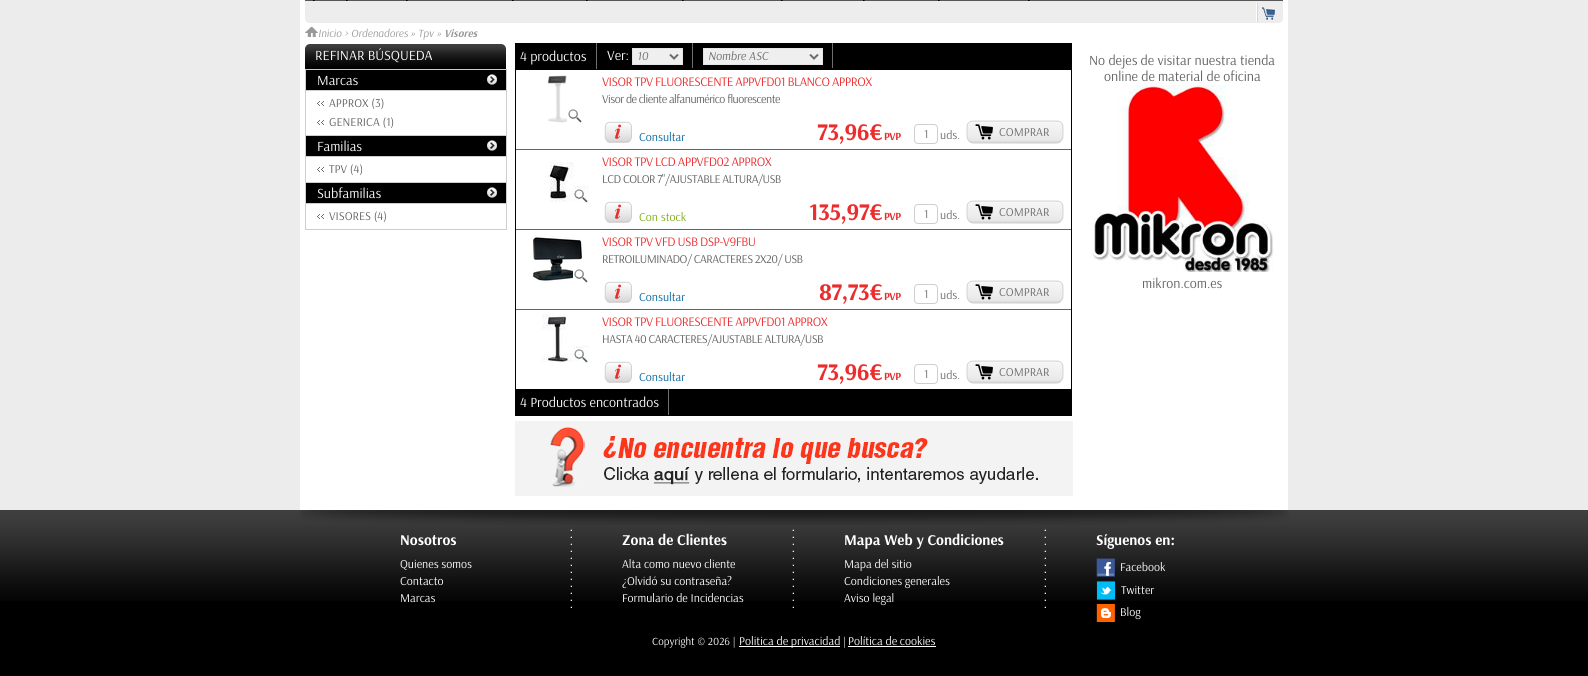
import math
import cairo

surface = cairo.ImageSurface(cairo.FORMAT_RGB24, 1588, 676)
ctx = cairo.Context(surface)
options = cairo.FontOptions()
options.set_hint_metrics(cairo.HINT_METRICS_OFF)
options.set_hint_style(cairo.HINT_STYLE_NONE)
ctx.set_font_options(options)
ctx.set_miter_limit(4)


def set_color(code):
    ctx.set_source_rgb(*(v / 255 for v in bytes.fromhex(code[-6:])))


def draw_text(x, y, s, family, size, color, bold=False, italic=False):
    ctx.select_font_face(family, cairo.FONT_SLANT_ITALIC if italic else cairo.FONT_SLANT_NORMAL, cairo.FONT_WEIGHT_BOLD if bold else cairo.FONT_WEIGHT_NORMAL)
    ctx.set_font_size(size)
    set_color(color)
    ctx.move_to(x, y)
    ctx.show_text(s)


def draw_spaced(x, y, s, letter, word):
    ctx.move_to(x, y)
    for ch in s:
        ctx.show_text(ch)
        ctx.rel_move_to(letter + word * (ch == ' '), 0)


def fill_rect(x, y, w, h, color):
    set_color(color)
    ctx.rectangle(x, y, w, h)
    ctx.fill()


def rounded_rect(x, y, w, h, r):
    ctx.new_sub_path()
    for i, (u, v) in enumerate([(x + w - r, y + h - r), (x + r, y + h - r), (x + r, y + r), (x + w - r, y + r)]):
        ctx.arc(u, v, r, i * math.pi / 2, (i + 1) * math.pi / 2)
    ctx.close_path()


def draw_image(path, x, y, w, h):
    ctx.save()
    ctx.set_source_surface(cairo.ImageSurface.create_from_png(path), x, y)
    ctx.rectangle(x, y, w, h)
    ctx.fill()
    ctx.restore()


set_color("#000000")
ctx.paint()
fill_rect(0, 0, 1588, 510, "#ececed")
fill_rect(300, 0, 988, 510, "#ffffff")
fill_rect(305, 0, 978, 1, "#585757")
fill_rect(305, 0, 1, 1, "#a4422b")
draw_image("assets/img1.png", 313, 0, 2, 1)
draw_image("assets/img1.png", 346, 0, 2, 1)
draw_image("assets/img1.png", 406, 0, 2, 1)
draw_image("assets/img1.png", 512, 0, 2, 1)
draw_image("assets/img1.png", 586, 0, 2, 1)
draw_image("assets/img1.png", 682, 0, 2, 1)
draw_image("assets/img1.png", 781, 0, 2, 1)
draw_image("assets/img1.png", 863, 0, 2, 1)
draw_image("assets/img1.png", 938, 0, 2, 1)
draw_image("assets/img1.png", 1028, 0, 2, 1)
set_color("#ededed")
ctx.new_path()
ctx.move_to(305, 1)
ctx.line_to(1283, 1)
ctx.line_to(1283, 19)
ctx.curve_to(1283, 21, 1281, 23, 1279, 23)
ctx.line_to(309, 23)
ctx.curve_to(307, 23, 305, 21, 305, 19)
ctx.close_path()
ctx.fill()
draw_image("assets/img2.png", 1256, 3, 2, 19)
draw_image("assets/img3.png", 1262, 7, 13, 13)
draw_image("assets/img4.png", 305, 27, 13, 10)
draw_text(318, 37, "Inicio", "Arsenal", 11, "#999999", italic=True)
draw_text(344, 37, ">", "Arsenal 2", 11, "#999999", italic=True)
draw_text(351, 37, "Ordenadores", "Arsenal", 11, "#999999", italic=True)
draw_text(410, 37, "»", "Arsenal 2", 11, "#999999", italic=True)
draw_text(418, 37, "Tpv", "Arsenal", 11, "#999999", italic=True)
draw_text(436, 37, "»", "Arsenal 2", 11, "#999999", italic=True)
draw_text(444, 37, "Visores", "Arsenal", 11, "#999999", bold=True, italic=True)
draw_image("assets/img5.png", 305, 44, 201, 25)
draw_text(315, 60, "REFINAR BÚSQUEDA", "Arsenal", 14, "#ffffff")
fill_rect(305, 69, 202, 1, "#cecece")
fill_rect(506, 69, 1, 161, "#cecece")
fill_rect(305, 69, 1, 161, "#cecece")
fill_rect(306, 70, 200, 20, "#000000")
draw_image("assets/img6.png", 487, 74, 10, 11)
draw_text(317, 85, "Marcas", "Arsenal", 14, "#ffffff")
fill_rect(306, 90, 200, 1, "#cecece")
fill_rect(306, 135, 200, 1, "#cecece")
draw_image("assets/img7.png", 317, 101, 7, 5)
draw_text(329, 107, "APPROX (3)", "Arsenal", 12, "#626262")
draw_image("assets/img7.png", 317, 120, 7, 5)
draw_text(329, 126, "GENERICA (1)", "Arsenal", 12, "#626262")
fill_rect(306, 136, 200, 20, "#000000")
draw_image("assets/img6.png", 487, 140, 10, 11)
draw_text(317, 151, "Familias", "Arsenal", 14, "#ffffff")
fill_rect(306, 156, 200, 1, "#cecece")
fill_rect(306, 182, 200, 1, "#cecece")
draw_image("assets/img7.png", 317, 167, 7, 5)
draw_text(329, 173, "TPV (4)", "Arsenal", 12, "#626262")
fill_rect(306, 183, 200, 20, "#000000")
draw_image("assets/img6.png", 487, 187, 10, 11)
draw_text(317, 198, "Subfamilias", "Arsenal", 14, "#ffffff")
fill_rect(306, 203, 200, 1, "#cecece")
fill_rect(306, 229, 200, 1, "#cecece")
draw_image("assets/img7.png", 317, 214, 7, 5)
draw_text(329, 220, "VISORES (4)", "Arsenal", 12, "#626262")
fill_rect(515, 43, 557, 27, "#000000")
fill_rect(596, 43, 1, 26, "#6e6e6e")
draw_text(520, 61, "4 productos", "Arsenal", 14, "#ffffff")
fill_rect(692, 43, 1, 25, "#6e6e6e")
draw_text(607, 60, "Ver:", "Arsenal", 14, "#ffffff")
set_color("#efefef")
ctx.rectangle(632.5, 48.5, 50, 16)
ctx.fill_preserve()
set_color("#e5e5e5")
ctx.set_line_width(1)
ctx.stroke()
ctx.new_path()
ctx.move_to(670, 54.5)
ctx.line_to(674, 58.5)
ctx.line_to(678, 54.5)
set_color("#6b6b6b")
ctx.set_line_width(2)
ctx.stroke()
draw_text(637, 60, "10", "Arsenal", 12, "#6b6b6b", italic=True)
fill_rect(832, 43, 1, 25, "#6e6e6e")
set_color("#efefef")
ctx.rectangle(703.5, 48.5, 119, 16)
ctx.fill_preserve()
set_color("#e5e5e5")
ctx.set_line_width(1)
ctx.stroke()
ctx.new_path()
ctx.move_to(810, 54.5)
ctx.line_to(814, 58.5)
ctx.line_to(818, 54.5)
set_color("#6b6b6b")
ctx.set_line_width(2)
ctx.stroke()
draw_text(708, 60, "Nombre ASC", "Arsenal", 12, "#6b6b6b", italic=True)
fill_rect(1071, 70, 1, 319, "#000000")
fill_rect(515, 70, 1, 319, "#000000")
fill_rect(516, 149, 555, 1, "#eb2d2e")
draw_image("assets/img8.png", 547, 75, 35, 48)
ctx.select_font_face("Arsenal")
ctx.set_font_size(13)
draw_spaced(602, 86, "VISOR TPV FLUORESCENTE APPVFD01 BLANCO APPROX", -0.5, 0)
ctx.set_font_size(12)
set_color("#626262")
draw_spaced(602, 103, "Visor de cliente alfanumérico fluorescente", -0.5, 0)
draw_image("assets/img9.png", 604, 121, 28, 22)
draw_text(639, 141, "Consultar", "Arsenal", 12, "#0064a2")
ctx.select_font_face("Arsenal", cairo.FONT_SLANT_NORMAL, cairo.FONT_WEIGHT_BOLD)
ctx.set_font_size(24)
set_color("#eb2d2e")
draw_spaced(817, 140, "73,96€", -0.5, 0)
ctx.set_font_size(11)
draw_spaced(884, 140, "PVP", -0.5, 0)
draw_image("assets/img10.png", 966, 120, 98, 24)
rounded_rect(914.5, 124.5, 23, 19, 3.5)
set_color("#cecece")
ctx.set_line_width(1)
ctx.stroke()
draw_text(924, 138, "1", "Arsenal", 12, "#6b6b6b")
draw_text(940, 139, "uds.", "Arsenal", 12, "#6b6b6b")
draw_text(999, 136, "COMPRAR", "Arsenal", 12, "#6b6b6b")
fill_rect(516, 229, 555, 1, "#eb2d2e")
draw_image("assets/img11.png", 547, 162, 42, 42)
ctx.set_font_size(13)
draw_spaced(602, 166, "VISOR TPV LCD APPVFD02 APPROX", -0.5, 0)
ctx.set_font_size(12)
set_color("#626262")
draw_spaced(602, 183, "LCD COLOR 7\"/AJUSTABLE ALTURA/USB", -0.5, 0)
draw_image("assets/img9.png", 604, 201, 28, 22)
draw_text(639, 221, "Con stock", "Arsenal", 12, "#7aab0f")
ctx.select_font_face("Arsenal", cairo.FONT_SLANT_NORMAL, cairo.FONT_WEIGHT_BOLD)
ctx.set_font_size(24)
set_color("#eb2d2e")
draw_spaced(809, 220, "135,97€", -0.5, 0)
ctx.set_font_size(11)
draw_spaced(884, 220, "PVP", -0.5, 0)
draw_image("assets/img10.png", 966, 200, 98, 24)
rounded_rect(914.5, 204.5, 23, 19, 3.5)
set_color("#cecece")
ctx.stroke()
draw_text(924, 218, "1", "Arsenal", 12, "#6b6b6b")
draw_text(940, 219, "uds.", "Arsenal", 12, "#6b6b6b")
draw_text(999, 216, "COMPRAR", "Arsenal", 12, "#6b6b6b")
fill_rect(516, 309, 555, 1, "#eb2d2e")
draw_image("assets/img12.png", 533, 235, 55, 48)
ctx.set_font_size(13)
draw_spaced(602, 246, "VISOR TPV VFD USB DSP-V9FBU", -0.5, 0)
ctx.set_font_size(12)
set_color("#626262")
draw_spaced(602, 263, "RETROILUMINADO/ CARACTERES 2X20/ USB", -0.5, 0)
draw_image("assets/img9.png", 604, 281, 28, 22)
draw_text(639, 301, "Consultar", "Arsenal", 12, "#0064a2")
ctx.select_font_face("Arsenal", cairo.FONT_SLANT_NORMAL, cairo.FONT_WEIGHT_BOLD)
ctx.set_font_size(24)
set_color("#eb2d2e")
draw_spaced(819, 300, "87,73€", -0.5, 0)
ctx.set_font_size(11)
draw_spaced(884, 300, "PVP", -0.5, 0)
draw_image("assets/img10.png", 966, 280, 98, 24)
rounded_rect(914.5, 284.5, 23, 19, 3.5)
set_color("#cecece")
ctx.stroke()
draw_text(924, 298, "1", "Arsenal", 12, "#6b6b6b")
draw_text(940, 299, "uds.", "Arsenal", 12, "#6b6b6b")
draw_text(999, 296, "COMPRAR", "Arsenal", 12, "#6b6b6b")
draw_image("assets/img13.png", 542, 314, 47, 50)
ctx.set_font_size(13)
set_color("#eb2d2e")
draw_spaced(602, 326, "VISOR TPV FLUORESCENTE APPVFD01 APPROX", -0.5, 0)
ctx.set_font_size(12)
set_color("#626262")
draw_spaced(602, 343, "HASTA 40 CARACTERES/AJUSTABLE ALTURA/USB", -0.5, 0)
draw_image("assets/img9.png", 604, 361, 28, 22)
draw_text(639, 381, "Consultar", "Arsenal", 12, "#0064a2")
ctx.select_font_face("Arsenal", cairo.FONT_SLANT_NORMAL, cairo.FONT_WEIGHT_BOLD)
ctx.set_font_size(24)
set_color("#eb2d2e")
draw_spaced(817, 380, "73,96€", -0.5, 0)
ctx.set_font_size(11)
draw_spaced(884, 380, "PVP", -0.5, 0)
draw_image("assets/img10.png", 966, 360, 98, 24)
rounded_rect(914.5, 364.5, 23, 19, 3.5)
set_color("#cecece")
ctx.stroke()
draw_text(924, 378, "1", "Arsenal", 12, "#6b6b6b")
draw_text(940, 379, "uds.", "Arsenal", 12, "#6b6b6b")
draw_text(999, 376, "COMPRAR", "Arsenal", 12, "#6b6b6b")
fill_rect(515, 389, 557, 27, "#000000")
fill_rect(668, 389, 1, 26, "#6e6e6e")
draw_text(520, 407, "4 Productos encontrados", "Arsenal", 14, "#ffffff")
draw_image("assets/img14.png", 515, 421, 558, 75)
draw_text(1089, 65, "No dejes de visitar nuestra tienda", "Arsenal", 14, "#626262")
draw_text(1104, 81, "online de material de oficina", "Arsenal", 14, "#626262")
draw_image("assets/img15.png", 1091, 85, 183, 187)
draw_text(1142, 288, "mikron.com.es", "Arsenal", 14, "#626262")
draw_image("assets/img16.png", 0, 510, 1588, 91)
draw_image("assets/img17.png", 300, 510, 989, 15)
draw_image("assets/img18.png", 570, 529, 2, 79)
draw_text(400, 545, "Nosotros", "Arsenal", 15, "#ffffff", bold=True)
draw_text(400, 568, "Quienes somos", "Arsenal", 12, "#ffffff")
draw_text(400, 585, "Contacto", "Arsenal", 12, "#ffffff")
draw_text(400, 602, "Marcas", "Arsenal", 12, "#ffffff")
draw_image("assets/img18.png", 792, 529, 2, 79)
draw_text(622, 545, "Zona de Clientes", "Arsenal", 15, "#ffffff", bold=True)
draw_text(622, 568, "Alta como nuevo cliente", "Arsenal", 12, "#ffffff")
draw_text(622, 585, "¿Olvidó su contraseña?", "Arsenal", 12, "#ffffff")
draw_text(622, 602, "Formulario de Incidencias", "Arsenal", 12, "#ffffff")
draw_image("assets/img18.png", 1044, 529, 2, 79)
draw_text(844, 545, "Mapa Web y Condiciones", "Arsenal", 15, "#ffffff", bold=True)
draw_text(844, 568, "Mapa del sitio", "Arsenal", 12, "#ffffff")
draw_text(844, 585, "Condiciones generales", "Arsenal", 12, "#ffffff")
draw_text(844, 602, "Aviso legal", "Arsenal", 12, "#ffffff")
draw_text(1096, 545, "Síguenos en:", "Arsenal", 15, "#ffffff", bold=True)
draw_image("assets/img19.png", 1096, 558, 19, 19)
draw_text(1120, 571, "Facebook", "Arsenal", 12, "#ffffff")
draw_image("assets/img20.png", 1096, 581, 20, 19)
draw_text(1121, 594, "Twitter", "Arsenal", 12, "#ffffff")
draw_image("assets/img21.png", 1096, 604, 19, 18)
draw_text(1120, 616, "Blog", "Arsenal", 12, "#ffffff")
draw_text(652, 645, "Copyright © 2026 |", "Arsenal", 11, "#ffffff")
fill_rect(739, 646, 101, 1, "#ffffff")
draw_text(739, 645, "Politica de privacidad", "Arsenal", 12, "#ffffff")
draw_text(843, 645, "|", "Arsenal", 11, "#ffffff")
draw_text(848, 645, "Política de cookies", "Arsenal", 12, "#ffffff")
fill_rect(848, 646, 88, 1, "#ffffff")
surface.write_to_png("output.png")
